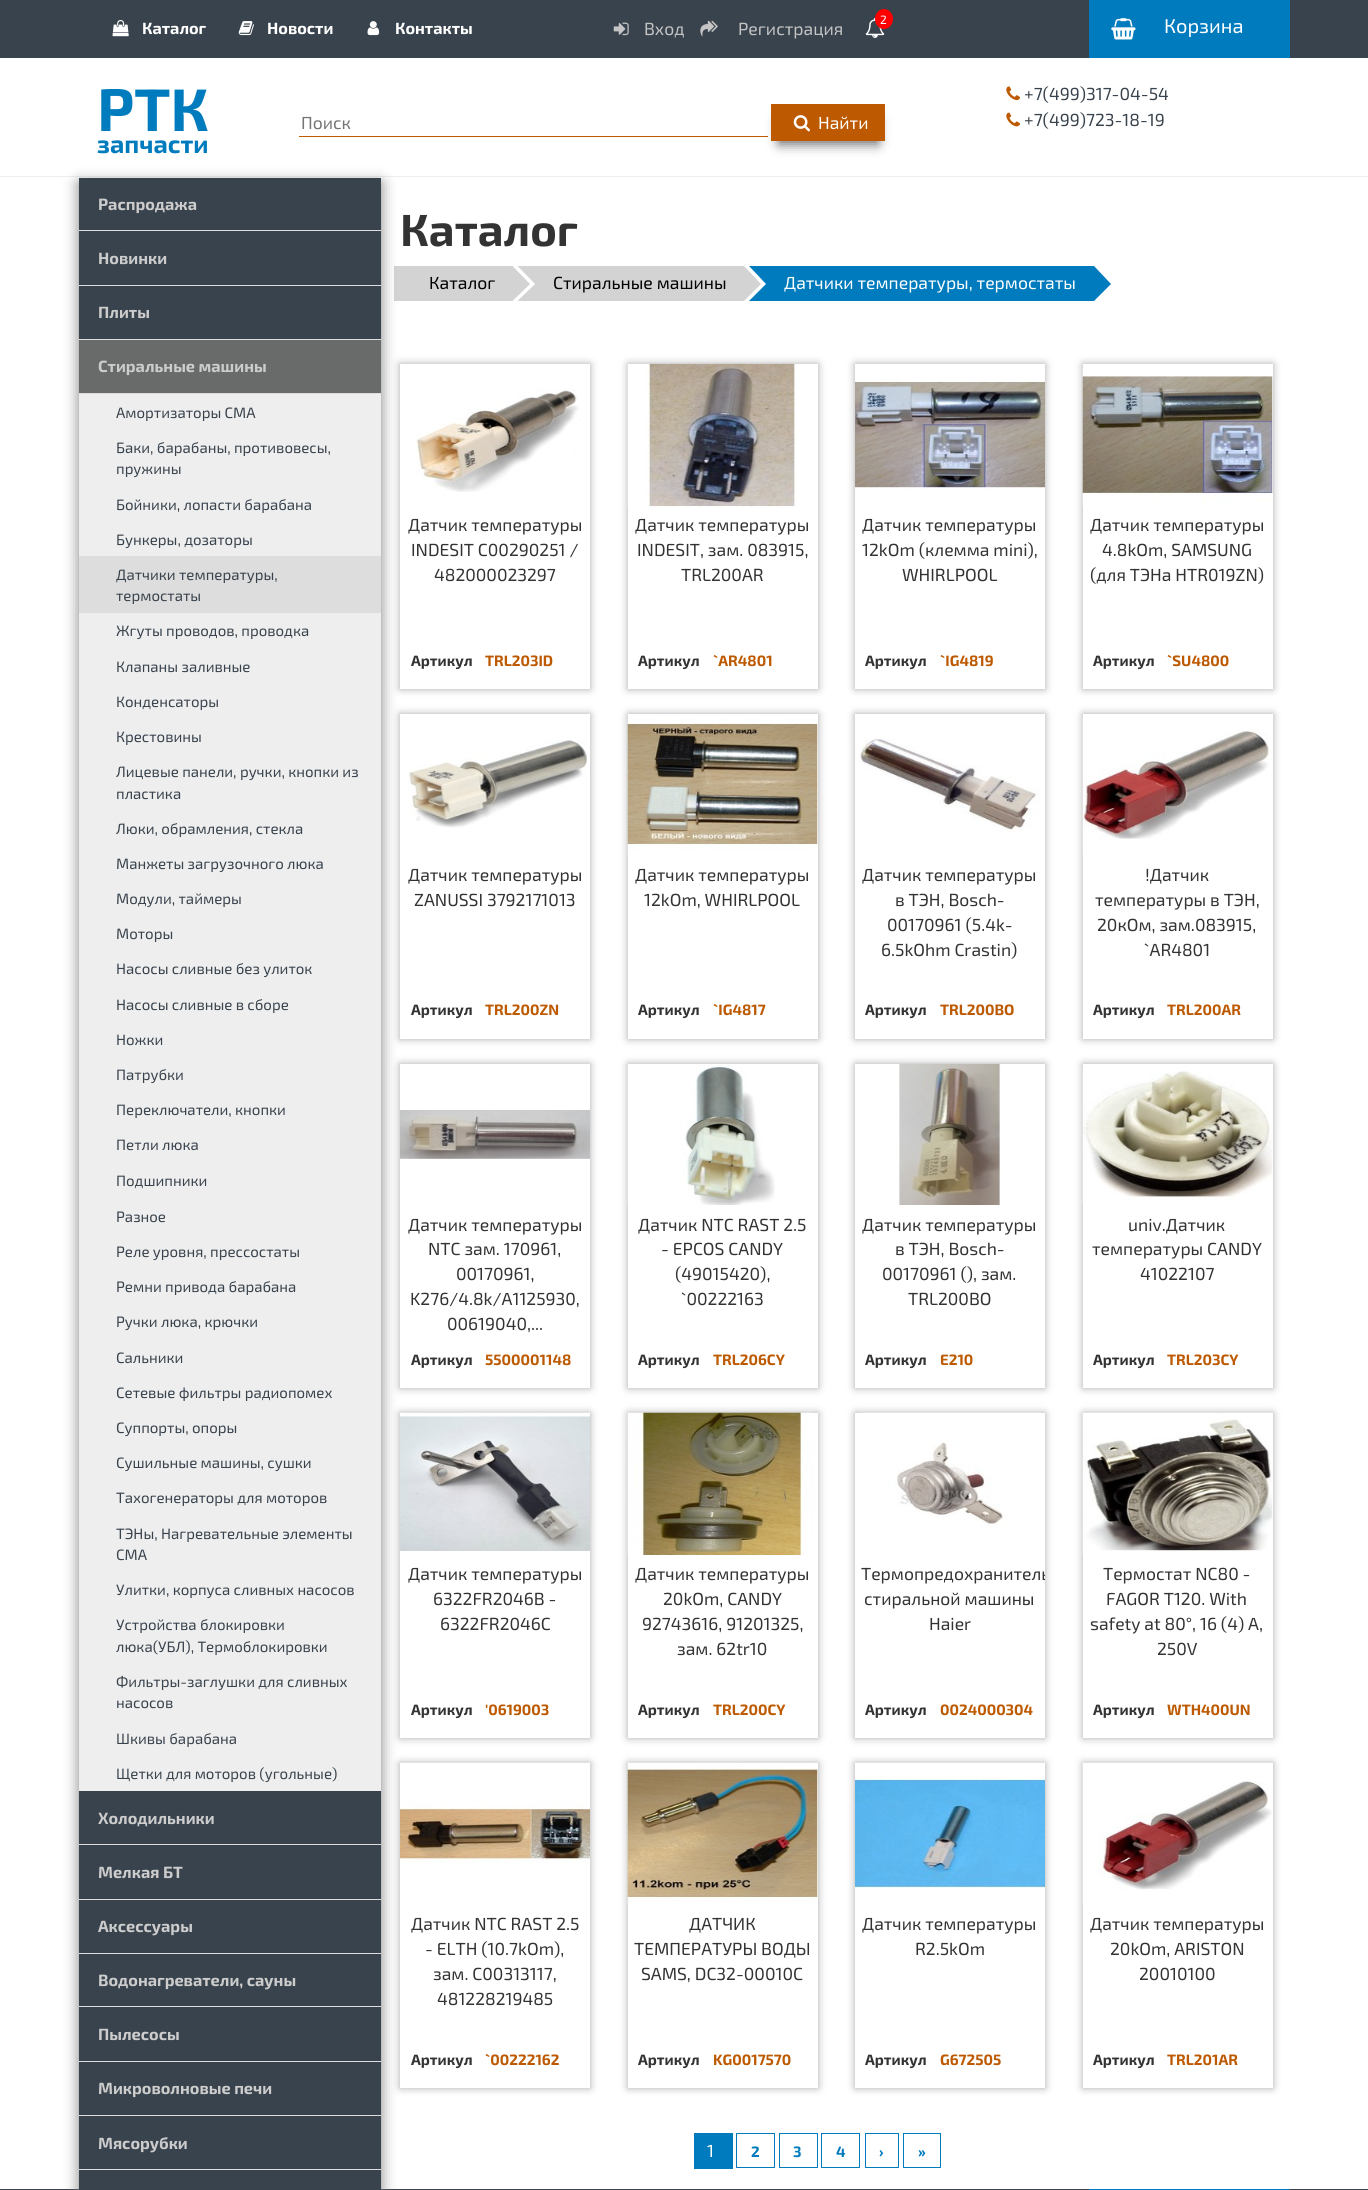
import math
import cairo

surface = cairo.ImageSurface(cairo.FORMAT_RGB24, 1368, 2190)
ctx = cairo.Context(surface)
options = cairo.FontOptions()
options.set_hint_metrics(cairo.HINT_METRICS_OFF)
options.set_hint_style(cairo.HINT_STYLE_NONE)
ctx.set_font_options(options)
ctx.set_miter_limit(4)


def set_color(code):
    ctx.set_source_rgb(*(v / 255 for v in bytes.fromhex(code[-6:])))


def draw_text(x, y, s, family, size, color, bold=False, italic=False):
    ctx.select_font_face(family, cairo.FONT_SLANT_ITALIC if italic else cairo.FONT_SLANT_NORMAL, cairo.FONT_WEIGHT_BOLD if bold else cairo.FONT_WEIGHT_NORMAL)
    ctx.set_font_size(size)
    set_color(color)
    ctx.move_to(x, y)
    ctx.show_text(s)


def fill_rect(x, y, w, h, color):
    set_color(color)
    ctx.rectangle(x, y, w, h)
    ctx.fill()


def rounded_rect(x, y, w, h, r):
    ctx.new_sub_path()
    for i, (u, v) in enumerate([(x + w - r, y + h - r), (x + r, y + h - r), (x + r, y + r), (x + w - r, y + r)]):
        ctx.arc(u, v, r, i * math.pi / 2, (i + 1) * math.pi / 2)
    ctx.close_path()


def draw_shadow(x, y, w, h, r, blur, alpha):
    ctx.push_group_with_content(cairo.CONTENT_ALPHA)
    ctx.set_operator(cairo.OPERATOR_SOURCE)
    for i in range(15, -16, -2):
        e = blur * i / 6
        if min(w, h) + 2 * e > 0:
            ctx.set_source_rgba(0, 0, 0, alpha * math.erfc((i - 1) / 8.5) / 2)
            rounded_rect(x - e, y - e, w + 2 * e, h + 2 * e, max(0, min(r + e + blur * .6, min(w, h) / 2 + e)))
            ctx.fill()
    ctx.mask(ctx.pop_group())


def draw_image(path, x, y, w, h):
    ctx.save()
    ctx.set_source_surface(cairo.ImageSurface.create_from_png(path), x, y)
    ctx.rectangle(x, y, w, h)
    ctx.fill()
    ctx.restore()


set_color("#ffffff")
ctx.paint()
fill_rect(0, 0, 1368, 58, "#39434d")
draw_image("assets/img1.png", 112, 20, 17, 17)
draw_text(142, 34, "Каталог", "Exo 2", 16.25, "#ffffff", bold=True)
draw_image("assets/img2.png", 238, 21, 16, 15)
draw_text(267, 34, "Новости", "Exo 2", 16.25, "#ffffff", bold=True)
draw_image("assets/img3.png", 367, 21, 13, 15)
draw_text(395, 34, "Контакты", "Exo 2", 16.25, "#ffffff", bold=True)
draw_image("assets/img4.png", 865, 18, 20, 20)
set_color("#ff0000")
ctx.new_path()
ctx.move_to(884, 9)
ctx.curve_to(889, 9, 893, 13.5, 893, 19)
ctx.curve_to(893, 24.5, 889, 29, 884, 29)
ctx.curve_to(879, 29, 875, 24.5, 875, 19)
ctx.curve_to(875, 13.5, 879, 9, 884, 9)
ctx.close_path()
ctx.fill()
draw_text(880, 24, "2", "Exo 2", 12, "#ffffff")
draw_image("assets/img5.png", 613, 22, 16, 14)
draw_text(644, 35, "Вход", "Exo 2", 17.5, "#c4c4c4")
draw_image("assets/img6.png", 700, 20, 18, 17)
draw_text(738, 35, "Регистрация", "Exo 2", 17.5, "#c4c4c4")
fill_rect(1089, 0, 201, 58, "#007bbd")
draw_image("assets/img7.png", 1111, 18, 25, 22)
draw_text(1164, 33, "Корзина", "Exo 2", 20, "#ffffff")
fill_rect(0, 176, 1368, 1, "#eeeeee")
draw_text(97, 131, "РТК", "Exo 2", 60, "#007bbd", bold=True)
draw_text(97, 153, "запчасти", "Exo 2", 25, "#007bbd", bold=True)
fill_rect(299, 136, 469, 1, "#bd5900")
draw_text(301, 129, "Поиск", "Exo 2", 17.5, "#757575")
set_color("#666666")
draw_shadow(779, 121, 99, 23, 0, 6, 1)
fill_rect(771, 104, 114, 37, "#bd5900")
draw_image("assets/img8.png", 793, 115, 17, 17)
draw_text(818, 129, "Найти", "Exo 2", 17.5, "#ffffff")
draw_image("assets/img9.png", 1006, 86, 14, 15)
draw_text(1024, 100, "+7(499)317-04-54", "Exo 2", 17.5, "#39434d")
draw_image("assets/img10.png", 1006, 112, 14, 15)
draw_text(1024, 126, "+7(499)723-18-19", "Exo 2", 17.5, "#39434d")
fill_rect(394, 266, 119, 35, "#d3d3d3")
set_color("#aaaaaa")
draw_shadow(400, 364, 190, 325, 0, 4, 1)
fill_rect(400, 364, 190, 325, "#ffffff")
set_color("#aaaaaa")
draw_shadow(400, 714, 190, 325, 0, 4, 1)
fill_rect(400, 714, 190, 325, "#ffffff")
set_color("#aaaaaa")
draw_shadow(400, 1064, 190, 324, 0, 4, 1)
fill_rect(400, 1064, 190, 324, "#ffffff")
draw_image("assets/img19.png", 400, 1110, 190, 49)
set_color("#aaaaaa")
draw_shadow(400, 1413, 190, 325, 0, 4, 1)
fill_rect(400, 1551, 190, 187, "#ffffff")
draw_image("assets/img23.png", 400, 1412, 190, 139)
set_color("#aaaaaa")
draw_shadow(400, 1763, 190, 325, 0, 4, 1)
fill_rect(400, 1863, 190, 225, "#ffffff")
draw_image("assets/img27.png", 400, 1762, 190, 101)
fill_rect(0, 2189, 1368, 1, "#39434d")
set_color("#808080")
draw_shadow(79, 183, 302, 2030, 0, 7.5, 1)
fill_rect(79, 178, 302, 52, "#39434d")
fill_rect(79, 230, 302, 1, "#dddddd")
draw_text(98, 210, "Распродажа", "Exo 2", 16.25, "#cccccc", bold=True)
fill_rect(79, 231, 302, 54, "#39434d")
fill_rect(79, 285, 302, 1, "#dddddd")
draw_text(98, 264, "Новинки", "Exo 2", 16.25, "#cccccc", bold=True)
fill_rect(79, 286, 302, 53, "#39434d")
fill_rect(79, 339, 302, 1, "#dddddd")
draw_text(98, 318, "Плиты", "Exo 2", 16.25, "#cccccc", bold=True)
fill_rect(79, 340, 302, 53, "#696a6a")
fill_rect(79, 393, 302, 1, "#dddddd")
draw_text(98, 372, "Стиральные машины", "Exo 2", 16.25, "#cccccc", bold=True)
fill_rect(79, 394, 302, 162, "#eeeeee")
draw_text(116, 418, "Амортизаторы СМА", "Exo 2", 15, "#39434d")
draw_text(116, 453, "Баки, барабаны, противовесы,", "Exo 2", 15, "#39434d")
draw_text(116, 474, "пружины", "Exo 2", 15, "#39434d")
draw_text(116, 510, "Бойники, лопасти барабана", "Exo 2", 15, "#39434d")
draw_text(116, 545, "Бункеры, дозаторы", "Exo 2", 15, "#39434d")
fill_rect(79, 556, 302, 57, "#dddddd")
draw_text(116, 580, "Датчики температуры,", "Exo 2", 15, "#39434d")
draw_text(116, 601, "термостаты", "Exo 2", 15, "#39434d")
fill_rect(79, 613, 302, 1178, "#eeeeee")
draw_text(116, 636, "Жгуты проводов, проводка", "Exo 2", 15, "#39434d")
draw_text(116, 672, "Клапаны заливные", "Exo 2", 15, "#39434d")
draw_text(116, 707, "Конденсаторы", "Exo 2", 15, "#39434d")
draw_text(116, 742, "Крестовины", "Exo 2", 15, "#39434d")
draw_text(116, 777, "Лицевые панели, ручки, кнопки из", "Exo 2", 15, "#39434d")
draw_text(116, 799, "пластика", "Exo 2", 15, "#39434d")
draw_text(116, 834, "Люки, обрамления, стекла", "Exo 2", 15, "#39434d")
draw_text(116, 869, "Манжеты загрузочного люка", "Exo 2", 15, "#39434d")
draw_text(116, 904, "Модули, таймеры", "Exo 2", 15, "#39434d")
draw_text(116, 939, "Моторы", "Exo 2", 15, "#39434d")
draw_text(116, 974, "Насосы сливные без улиток", "Exo 2", 15, "#39434d")
draw_text(116, 1010, "Насосы сливные в сборе", "Exo 2", 15, "#39434d")
draw_text(116, 1045, "Ножки", "Exo 2", 15, "#39434d")
draw_text(116, 1080, "Патрубки", "Exo 2", 15, "#39434d")
draw_text(116, 1115, "Переключатели, кнопки", "Exo 2", 15, "#39434d")
draw_text(116, 1150, "Петли люка", "Exo 2", 15, "#39434d")
draw_text(116, 1186, "Подшипники", "Exo 2", 15, "#39434d")
draw_text(116, 1222, "Разное", "Exo 2", 15, "#39434d")
draw_text(116, 1257, "Реле уровня, прессостаты", "Exo 2", 15, "#39434d")
draw_text(116, 1292, "Ремни привода барабана", "Exo 2", 15, "#39434d")
draw_text(116, 1327, "Ручки люка, крючки", "Exo 2", 15, "#39434d")
draw_text(116, 1363, "Сальники", "Exo 2", 15, "#39434d")
draw_text(116, 1398, "Сетевые фильтры радиопомех", "Exo 2", 15, "#39434d")
draw_text(116, 1433, "Суппорты, опоры", "Exo 2", 15, "#39434d")
draw_text(116, 1468, "Сушильные машины, сушки", "Exo 2", 15, "#39434d")
draw_text(116, 1503, "Тахогенераторы для моторов", "Exo 2", 15, "#39434d")
draw_text(116, 1539, "ТЭНы, Нагревательные элементы", "Exo 2", 15, "#39434d")
draw_text(116, 1560, "СМА", "Exo 2", 15, "#39434d")
draw_text(116, 1595, "Улитки, корпуса сливных насосов", "Exo 2", 15, "#39434d")
draw_text(116, 1630, "Устройства блокировки", "Exo 2", 15, "#39434d")
draw_text(116, 1652, "люка(УБЛ), Термоблокировки", "Exo 2", 15, "#39434d")
draw_text(116, 1687, "Фильтры-заглушки для сливных", "Exo 2", 15, "#39434d")
draw_text(116, 1708, "насосов", "Exo 2", 15, "#39434d")
draw_text(116, 1744, "Шкивы барабана", "Exo 2", 15, "#39434d")
draw_text(116, 1779, "Щетки для моторов (угольные)", "Exo 2", 15, "#39434d")
fill_rect(79, 1791, 302, 53, "#39434d")
fill_rect(79, 1844, 302, 1, "#dddddd")
draw_text(98, 1824, "Холодильники", "Exo 2", 16.25, "#cccccc", bold=True)
fill_rect(79, 1845, 302, 54, "#39434d")
fill_rect(79, 1899, 302, 1, "#dddddd")
draw_text(98, 1878, "Мелкая БТ", "Exo 2", 16.25, "#cccccc", bold=True)
fill_rect(79, 1900, 302, 53, "#39434d")
fill_rect(79, 1953, 302, 1, "#dddddd")
draw_text(98, 1932, "Аксессуары", "Exo 2", 16.25, "#cccccc", bold=True)
fill_rect(79, 1954, 302, 161, "#39434d")
fill_rect(79, 2006, 302, 1, "#dddddd")
draw_text(98, 1986, "Водонагреватели, сауны", "Exo 2", 16.25, "#cccccc", bold=True)
fill_rect(79, 2061, 302, 1, "#dddddd")
draw_text(98, 2040, "Пылесосы", "Exo 2", 16.25, "#cccccc", bold=True)
fill_rect(79, 2115, 302, 1, "#dddddd")
draw_text(98, 2094, "Микроволновые печи", "Exo 2", 16.25, "#cccccc", bold=True)
fill_rect(79, 2116, 302, 53, "#39434d")
fill_rect(79, 2169, 302, 1, "#dddddd")
draw_text(98, 2149, "Мясорубки", "Exo 2", 16.25, "#cccccc", bold=True)
fill_rect(79, 2170, 302, 20, "#39434d")
draw_text(400, 246, "Каталог", "Exo 2", 45, "#333333", bold=True)
draw_text(429, 289, "Каталог", "Exo 2", 17.5, "#000000")
set_color("#d3d3d3")
ctx.new_path()
ctx.move_to(512.5, 301)
ctx.line_to(512.5, 266)
ctx.line_to(530, 284)
ctx.close_path()
ctx.fill()
fill_rect(535, 266, 209, 35, "#d3d3d3")
ctx.new_path()
ctx.move_to(517.5, 266)
ctx.line_to(552.5, 266)
ctx.line_to(535, 284)
ctx.close_path()
ctx.move_to(552.5, 301)
ctx.line_to(517.5, 301)
ctx.line_to(535, 284)
ctx.close_path()
ctx.fill()
draw_text(553, 289, "Стиральные машины", "Exo 2", 17.5, "#000000")
set_color("#d3d3d3")
ctx.new_path()
ctx.move_to(744, 301)
ctx.line_to(744, 266)
ctx.line_to(761, 284)
ctx.close_path()
ctx.fill()
fill_rect(766, 266, 328, 35, "#007bbd")
ctx.new_path()
ctx.move_to(749, 266)
ctx.line_to(784, 266)
ctx.line_to(766, 284)
ctx.close_path()
ctx.move_to(784, 301)
ctx.line_to(749, 301)
ctx.line_to(766, 284)
ctx.close_path()
ctx.fill()
draw_text(784, 289, "Датчики температуры, термостаты", "Exo 2", 17.5, "#ffffff")
set_color("#007bbd")
ctx.new_path()
ctx.move_to(1094, 301)
ctx.line_to(1094, 266)
ctx.line_to(1111, 284)
ctx.close_path()
ctx.fill()
draw_image("assets/img11.png", 416, 389, 165, 103)
draw_text(408, 531, "Датчик температуры", "Exo 2", 17.5, "#333333")
draw_text(411, 556, "INDESIT C00290251 /", "Exo 2", 17.5, "#333333")
draw_text(434, 581, "482000023297", "Exo 2", 17.5, "#333333")
draw_text(411, 666, "Артикул", "Exo 2", 15, "#333333", bold=True)
draw_text(485, 666, "TRL203ID", "Exo 2", 15, "#bd5900", bold=True)
set_color("#aaaaaa")
draw_shadow(628, 364, 190, 325, 0, 4, 1)
fill_rect(628, 364, 190, 325, "#ffffff")
draw_image("assets/img12.png", 627, 363, 170, 144)
draw_text(635, 531, "Датчик температуры", "Exo 2", 17.5, "#333333")
draw_text(637, 556, "INDESIT, зам. 083915,", "Exo 2", 17.5, "#333333")
draw_text(681, 581, "TRL200AR", "Exo 2", 17.5, "#333333")
draw_text(638, 666, "Артикул", "Exo 2", 15, "#333333", bold=True)
draw_text(713, 666, "`AR4801", "Exo 2", 15, "#bd5900", bold=True)
set_color("#aaaaaa")
draw_shadow(855, 364, 190, 325, 0, 4, 1)
fill_rect(855, 364, 190, 325, "#ffffff")
draw_image("assets/img13.png", 855, 380, 190, 110)
draw_text(862, 531, "Датчик температуры", "Exo 2", 17.5, "#333333")
draw_text(862, 556, "12kOm (клемма mini),", "Exo 2", 17.5, "#333333")
draw_text(902, 581, "WHIRLPOOL", "Exo 2", 17.5, "#333333")
draw_text(865, 666, "Артикул", "Exo 2", 15, "#333333", bold=True)
draw_text(940, 666, "`IG4819", "Exo 2", 15, "#bd5900", bold=True)
set_color("#aaaaaa")
draw_shadow(1083, 364, 190, 325, 0, 4, 1)
fill_rect(1083, 364, 190, 325, "#ffffff")
draw_image("assets/img14.png", 1082, 368, 191, 138)
draw_text(1090, 531, "Датчик температуры", "Exo 2", 17.5, "#333333")
draw_text(1102, 556, "4.8kOm, SAMSUNG", "Exo 2", 17.5, "#333333")
draw_text(1090, 581, "(для ТЭНа HTR019ZN)", "Exo 2", 17.5, "#333333")
draw_text(1093, 666, "Артикул", "Exo 2", 15, "#333333", bold=True)
draw_text(1167, 666, "`SU4800", "Exo 2", 15, "#bd5900", bold=True)
draw_image("assets/img15.png", 408, 740, 179, 88)
draw_text(408, 881, "Датчик температуры", "Exo 2", 17.5, "#333333")
draw_text(414, 906, "ZANUSSI 3792171013", "Exo 2", 17.5, "#333333")
draw_text(411, 1015, "Артикул", "Exo 2", 15, "#333333", bold=True)
draw_text(485, 1015, "TRL200ZN", "Exo 2", 15, "#bd5900", bold=True)
set_color("#aaaaaa")
draw_shadow(628, 714, 190, 325, 0, 4, 1)
fill_rect(628, 714, 190, 325, "#ffffff")
draw_image("assets/img16.png", 627, 718, 191, 137)
draw_text(635, 881, "Датчик температуры", "Exo 2", 17.5, "#333333")
draw_text(644, 906, "12kOm, WHIRLPOOL", "Exo 2", 17.5, "#333333")
draw_text(638, 1015, "Артикул", "Exo 2", 15, "#333333", bold=True)
draw_text(713, 1015, "`IG4817", "Exo 2", 15, "#bd5900", bold=True)
set_color("#aaaaaa")
draw_shadow(855, 714, 190, 325, 0, 4, 1)
fill_rect(855, 714, 190, 325, "#ffffff")
draw_image("assets/img17.png", 855, 739, 185, 93)
draw_text(862, 881, "Датчик температуры", "Exo 2", 17.5, "#333333")
draw_text(895, 906, "в ТЭН, Bosch-", "Exo 2", 17.5, "#333333")
draw_text(887, 931, "00170961 (5.4k-", "Exo 2", 17.5, "#333333")
draw_text(881, 956, "6.5kOhm Crastin)", "Exo 2", 17.5, "#333333")
draw_text(865, 1015, "Артикул", "Exo 2", 15, "#333333", bold=True)
draw_text(940, 1015, "TRL200BO", "Exo 2", 15, "#bd5900", bold=True)
set_color("#aaaaaa")
draw_shadow(1083, 714, 190, 325, 0, 4, 1)
fill_rect(1083, 714, 190, 325, "#ffffff")
draw_image("assets/img18.png", 1082, 718, 187, 137)
draw_text(1145, 881, "!Датчик", "Exo 2", 17.5, "#333333")
draw_text(1095, 906, "температуры в ТЭН,", "Exo 2", 17.5, "#333333")
draw_text(1097, 931, "20кОм, зам.083915,", "Exo 2", 17.5, "#333333")
draw_text(1144, 956, "`AR4801", "Exo 2", 17.5, "#333333")
draw_text(1093, 1015, "Артикул", "Exo 2", 15, "#333333", bold=True)
draw_text(1167, 1015, "TRL200AR", "Exo 2", 15, "#bd5900", bold=True)
draw_text(408, 1231, "Датчик температуры", "Exo 2", 17.5, "#333333")
draw_text(428, 1255, "NTC зам. 170961,", "Exo 2", 17.5, "#333333")
draw_text(456, 1280, "00170961,", "Exo 2", 17.5, "#333333")
draw_text(410, 1305, "K276/4.8k/A1125930,", "Exo 2", 17.5, "#333333")
draw_text(447, 1330, "00619040,...", "Exo 2", 17.5, "#333333")
draw_text(411, 1365, "Артикул", "Exo 2", 15, "#333333", bold=True)
draw_text(485, 1365, "5500001148", "Exo 2", 15, "#bd5900", bold=True)
set_color("#aaaaaa")
draw_shadow(628, 1064, 190, 324, 0, 4, 1)
fill_rect(628, 1064, 190, 324, "#ffffff")
draw_image("assets/img20.png", 627, 1065, 148, 140)
draw_text(638, 1231, "Датчик NTC RAST 2.5", "Exo 2", 17.5, "#333333")
draw_text(661, 1255, "- EPCOS CANDY", "Exo 2", 17.5, "#333333")
draw_text(675, 1280, "(49015420),", "Exo 2", 17.5, "#333333")
draw_text(681, 1305, "`00222163", "Exo 2", 17.5, "#333333")
draw_text(638, 1365, "Артикул", "Exo 2", 15, "#333333", bold=True)
draw_text(713, 1365, "TRL206CY", "Exo 2", 15, "#bd5900", bold=True)
set_color("#aaaaaa")
draw_shadow(855, 1064, 190, 324, 0, 4, 1)
fill_rect(855, 1064, 190, 324, "#ffffff")
draw_image("assets/img21.png", 899, 1063, 102, 142)
draw_text(862, 1231, "Датчик температуры", "Exo 2", 17.5, "#333333")
draw_text(895, 1255, "в ТЭН, Bosch-", "Exo 2", 17.5, "#333333")
draw_text(882, 1280, "00170961 (), зам.", "Exo 2", 17.5, "#333333")
draw_text(908, 1305, "TRL200BO", "Exo 2", 17.5, "#333333")
draw_text(865, 1365, "Артикул", "Exo 2", 15, "#333333", bold=True)
draw_text(940, 1365, "E210", "Exo 2", 15, "#bd5900", bold=True)
set_color("#aaaaaa")
draw_shadow(1083, 1064, 190, 324, 0, 4, 1)
fill_rect(1083, 1064, 190, 324, "#ffffff")
draw_image("assets/img22.png", 1082, 1068, 191, 137)
draw_text(1128, 1231, "univ.Датчик", "Exo 2", 17.5, "#333333")
draw_text(1092, 1255, "температуры CANDY", "Exo 2", 17.5, "#333333")
draw_text(1140, 1280, "41022107", "Exo 2", 17.5, "#333333")
draw_text(1093, 1365, "Артикул", "Exo 2", 15, "#333333", bold=True)
draw_text(1167, 1365, "TRL203CY", "Exo 2", 15, "#bd5900", bold=True)
draw_text(408, 1580, "Датчик температуры", "Exo 2", 17.5, "#333333")
draw_text(433, 1605, "6322FR2046B -", "Exo 2", 17.5, "#333333")
draw_text(440, 1630, "6322FR2046C", "Exo 2", 17.5, "#333333")
draw_text(411, 1715, "Артикул", "Exo 2", 15, "#333333", bold=True)
draw_text(485, 1715, "'0619003", "Exo 2", 15, "#bd5900", bold=True)
set_color("#aaaaaa")
draw_shadow(628, 1413, 190, 325, 0, 4, 1)
fill_rect(628, 1413, 190, 325, "#ffffff")
draw_image("assets/img24.png", 627, 1412, 187, 143)
draw_text(635, 1580, "Датчик температуры", "Exo 2", 17.5, "#333333")
draw_text(663, 1605, "20kOm, CANDY", "Exo 2", 17.5, "#333333")
draw_text(642, 1630, "92743616, 91201325,", "Exo 2", 17.5, "#333333")
draw_text(677, 1655, "зам. 62tr10", "Exo 2", 17.5, "#333333")
draw_text(638, 1715, "Артикул", "Exo 2", 15, "#333333", bold=True)
draw_text(713, 1715, "TRL200CY", "Exo 2", 15, "#bd5900", bold=True)
set_color("#aaaaaa")
draw_shadow(855, 1413, 190, 325, 0, 4, 1)
fill_rect(855, 1413, 190, 325, "#ffffff")
draw_image("assets/img25.png", 859, 1412, 182, 114)
ctx.save()
ctx.rectangle(855, 1413, 190, 325)
ctx.clip()
draw_text(861, 1580, "Термопредохранитель", "Exo 2", 17.5, "#333333")
ctx.restore()
draw_text(864, 1605, "стиральной машины", "Exo 2", 17.5, "#333333")
draw_text(929, 1630, "Haier", "Exo 2", 17.5, "#333333")
draw_text(865, 1715, "Артикул", "Exo 2", 15, "#333333", bold=True)
draw_text(940, 1715, "0024000304", "Exo 2", 15, "#bd5900", bold=True)
set_color("#aaaaaa")
draw_shadow(1083, 1413, 190, 325, 0, 4, 1)
fill_rect(1083, 1413, 190, 325, "#ffffff")
draw_image("assets/img26.png", 1082, 1412, 191, 143)
draw_text(1103, 1580, "Термостат NC80 -", "Exo 2", 17.5, "#333333")
draw_text(1106, 1605, "FAGOR T120. With", "Exo 2", 17.5, "#333333")
draw_text(1090, 1630, "safety at 80°, 16 (4) A,", "Exo 2", 17.5, "#333333")
draw_text(1157, 1655, "250V", "Exo 2", 17.5, "#333333")
draw_text(1093, 1715, "Артикул", "Exo 2", 15, "#333333", bold=True)
draw_text(1167, 1715, "WTH400UN", "Exo 2", 15, "#bd5900", bold=True)
draw_text(411, 1930, "Датчик NTC RAST 2.5", "Exo 2", 17.5, "#333333")
draw_text(425, 1955, "- ELTH (10.7kOm),", "Exo 2", 17.5, "#333333")
draw_text(433, 1980, "зам. C00313117,", "Exo 2", 17.5, "#333333")
draw_text(437, 2005, "481228219485", "Exo 2", 17.5, "#333333")
draw_text(411, 2065, "Артикул", "Exo 2", 15, "#333333", bold=True)
draw_text(485, 2065, "`00222162", "Exo 2", 15, "#bd5900", bold=True)
set_color("#aaaaaa")
draw_shadow(628, 1763, 190, 325, 0, 4, 1)
fill_rect(628, 1763, 190, 325, "#ffffff")
draw_image("assets/img28.png", 627, 1762, 191, 143)
draw_text(689, 1930, "ДАТЧИК", "Exo 2", 17.5, "#333333")
draw_text(634, 1955, "ТЕМПЕРАТУРЫ ВОДЫ", "Exo 2", 17.5, "#333333")
draw_text(641, 1980, "SAMS, DC32-00010C", "Exo 2", 17.5, "#333333")
draw_text(638, 2065, "Артикул", "Exo 2", 15, "#333333", bold=True)
draw_text(713, 2065, "KG0017570", "Exo 2", 15, "#bd5900", bold=True)
set_color("#aaaaaa")
draw_shadow(855, 1763, 190, 325, 0, 4, 1)
fill_rect(855, 1889, 190, 199, "#ffffff")
draw_image("assets/img29.png", 855, 1762, 190, 127)
draw_text(862, 1930, "Датчик температуры", "Exo 2", 17.5, "#333333")
draw_text(915, 1955, "R2.5kOm", "Exo 2", 17.5, "#333333")
draw_text(865, 2065, "Артикул", "Exo 2", 15, "#333333", bold=True)
draw_text(940, 2065, "G672505", "Exo 2", 15, "#bd5900", bold=True)
set_color("#aaaaaa")
draw_shadow(1083, 1763, 190, 325, 0, 4, 1)
fill_rect(1083, 1763, 190, 325, "#ffffff")
draw_image("assets/img30.png", 1082, 1762, 190, 143)
draw_text(1090, 1930, "Датчик температуры", "Exo 2", 17.5, "#333333")
draw_text(1110, 1955, "20kOm, ARISTON", "Exo 2", 17.5, "#333333")
draw_text(1139, 1980, "20010100", "Exo 2", 17.5, "#333333")
draw_text(1093, 2065, "Артикул", "Exo 2", 15, "#333333", bold=True)
draw_text(1167, 2065, "TRL201AR", "Exo 2", 15, "#bd5900", bold=True)
fill_rect(694, 2133, 39, 36, "#007bbd")
draw_text(707, 2157, "1", "Exo 2", 17.5, "#ffffff")
ctx.rectangle(736.5, 2133.5, 38, 34)
set_color("#007bbd")
ctx.set_line_width(1)
ctx.stroke()
draw_text(751, 2157, "2", "Exo 2", 15, "#007bbd", bold=True)
ctx.rectangle(779.5, 2133.5, 38, 34)
ctx.stroke()
draw_text(793, 2157, "3", "Exo 2", 15, "#007bbd", bold=True)
ctx.rectangle(821.5, 2133.5, 38, 34)
ctx.stroke()
draw_text(836, 2157, "4", "Exo 2", 15, "#007bbd", bold=True)
ctx.rectangle(865.5, 2133.5, 33, 34)
ctx.stroke()
draw_text(879, 2157, "›", "Exo 2", 15, "#007bbd", bold=True)
ctx.rectangle(903.5, 2133.5, 37, 34)
ctx.stroke()
draw_text(918, 2157, "»", "Exo 2", 15, "#007bbd", bold=True)
fill_rect(1089, 2189, 201, 1, "#007bbd")
surface.write_to_png("output.png")
